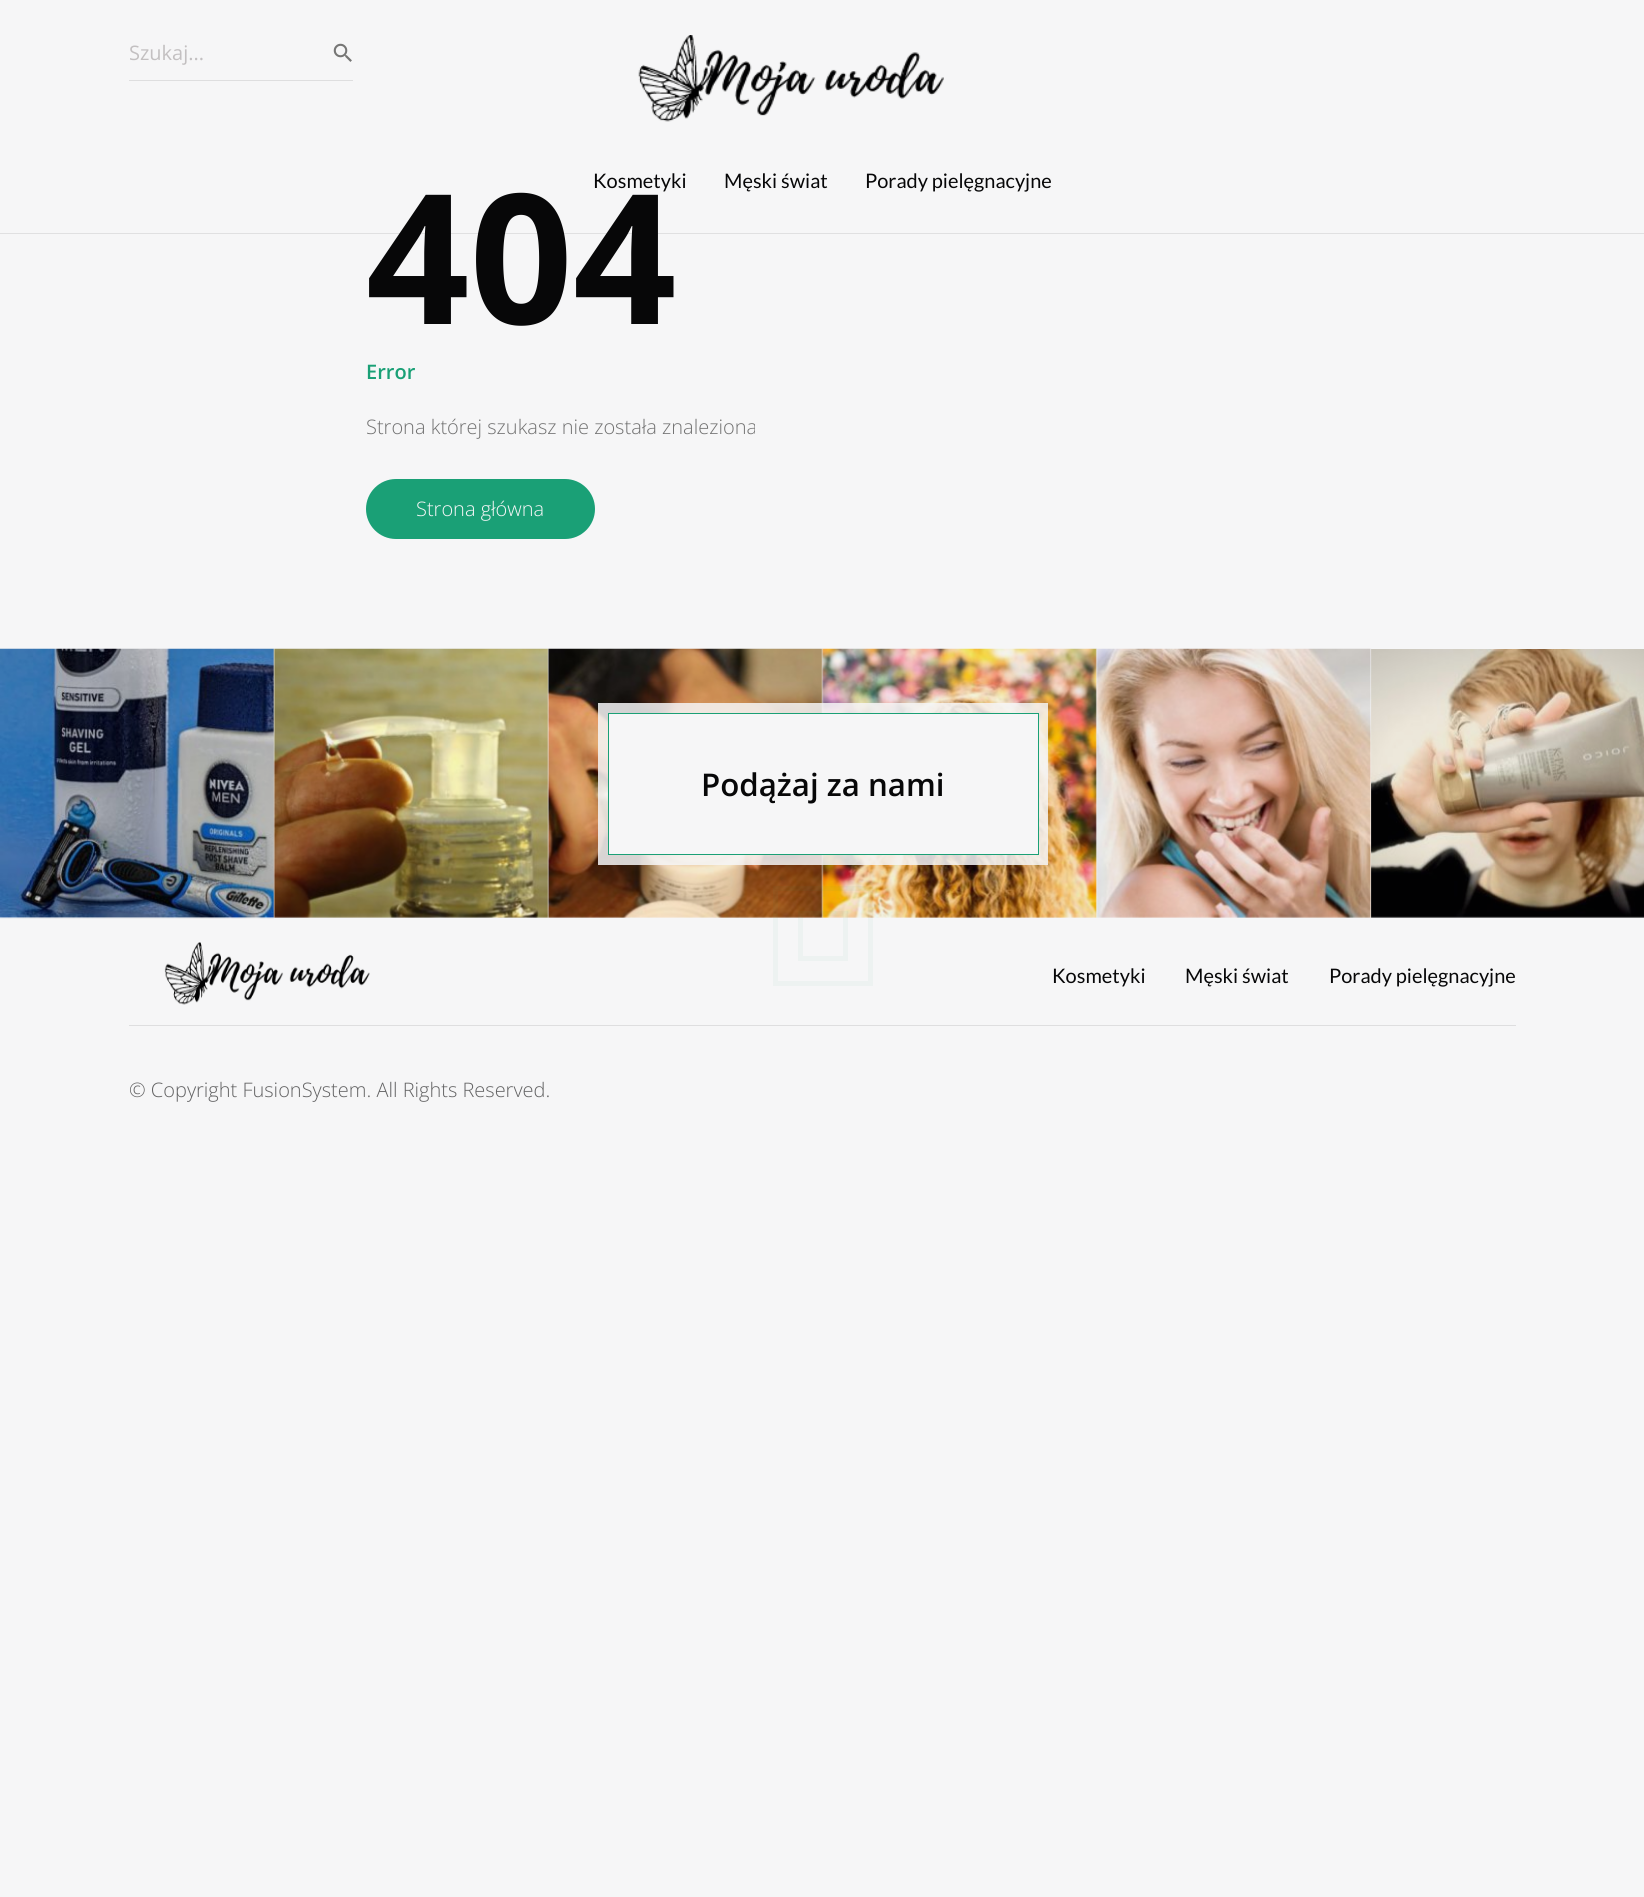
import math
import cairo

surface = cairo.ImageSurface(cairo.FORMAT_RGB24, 1644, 1897)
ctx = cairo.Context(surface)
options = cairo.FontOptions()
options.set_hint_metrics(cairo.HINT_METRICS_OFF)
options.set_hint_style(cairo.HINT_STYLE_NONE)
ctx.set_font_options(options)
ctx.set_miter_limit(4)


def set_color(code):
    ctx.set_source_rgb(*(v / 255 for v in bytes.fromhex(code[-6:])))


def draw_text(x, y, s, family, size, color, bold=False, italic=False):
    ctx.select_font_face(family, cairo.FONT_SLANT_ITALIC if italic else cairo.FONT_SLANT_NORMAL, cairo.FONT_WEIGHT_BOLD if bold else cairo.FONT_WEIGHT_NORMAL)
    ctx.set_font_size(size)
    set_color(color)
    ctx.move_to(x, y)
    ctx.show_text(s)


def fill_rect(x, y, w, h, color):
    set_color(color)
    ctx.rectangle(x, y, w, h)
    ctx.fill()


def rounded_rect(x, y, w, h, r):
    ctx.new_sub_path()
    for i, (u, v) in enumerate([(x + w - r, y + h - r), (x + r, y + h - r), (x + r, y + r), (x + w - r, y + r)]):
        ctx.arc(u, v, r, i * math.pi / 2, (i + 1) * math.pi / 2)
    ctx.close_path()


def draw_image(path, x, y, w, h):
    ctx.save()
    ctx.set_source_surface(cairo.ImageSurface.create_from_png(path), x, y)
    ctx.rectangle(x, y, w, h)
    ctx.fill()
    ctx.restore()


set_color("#f6f6f7")
ctx.paint()
fill_rect(0, 233, 1644, 1, "#e0e0e1")
fill_rect(129, 80, 224, 1, "#dededf")
draw_text(129, 60, "Szukaj...", "Open Sans", 20, "#c3c0c1")
draw_image("assets/img1.png", 333, 43, 19, 19)
draw_image("assets/img2.png", 638, 35, 306, 87)
draw_text(593, 188, "Kosmetyki", "Lato", 20, "#070708")
draw_text(724, 188, "Męski świat", "Lato", 20, "#070708")
draw_text(865, 188, "Porady pielęgnacyjne", "Lato", 20, "#070708")
draw_text(366, 324, "404", "Open Sans", 181, "#070708", bold=True)
draw_text(366, 379, "Error", "Open Sans SemiBold", 20, "#1aa076")
draw_text(366, 434, "Strona której szukasz nie została znaleziona", "Open Sans Light", 20, "#727272")
set_color("#1aa076")
rounded_rect(366, 479, 229, 60, 30)
ctx.fill()
draw_text(416, 516, "Strona główna", "Open Sans Light", 20, "#f6f6f7")
draw_image("assets/img3.png", 0, 648, 274, 271)
draw_image("assets/img4.png", 273, 648, 276, 270)
draw_image("assets/img5.png", 547, 648, 276, 270)
draw_image("assets/img6.png", 822, 648, 275, 270)
draw_image("assets/img7.png", 1096, 648, 276, 270)
draw_image("assets/img8.png", 1371, 649, 273, 269)
ctx.set_source_rgba(0.965, 0.965, 0.969, 0.85)
ctx.rectangle(598, 703, 450, 162)
ctx.fill()
set_color("#f6f6f7")
ctx.rectangle(608.5, 713.5, 430, 141)
ctx.fill_preserve()
set_color("#1aa076")
ctx.set_line_width(1)
ctx.stroke()
draw_text(701, 796, "Podążaj za nami", "Open Sans SemiBold", 31.25, "#070708")
ctx.rectangle(775.5, 888.5, 95, 95)
ctx.set_source_rgba(0.102, 0.647, 0.475, 0.04)
ctx.set_line_width(5)
ctx.stroke()
ctx.rectangle(800.5, 913.5, 45, 45)
ctx.stroke()
draw_image("assets/img9.png", 164, 942, 206, 63)
draw_text(1052, 983, "Kosmetyki", "Lato", 20, "#070708")
draw_text(1185, 983, "Męski świat", "Lato", 20, "#070708")
draw_text(1329, 983, "Porady pielęgnacyjne", "Lato", 20, "#070708")
fill_rect(129, 1025, 1387, 1, "#dededf")
draw_text(129, 1097, "© Copyright FusionSystem. All Rights Reserved.", "Open Sans Light", 20, "#636364")
surface.write_to_png("output.png")
